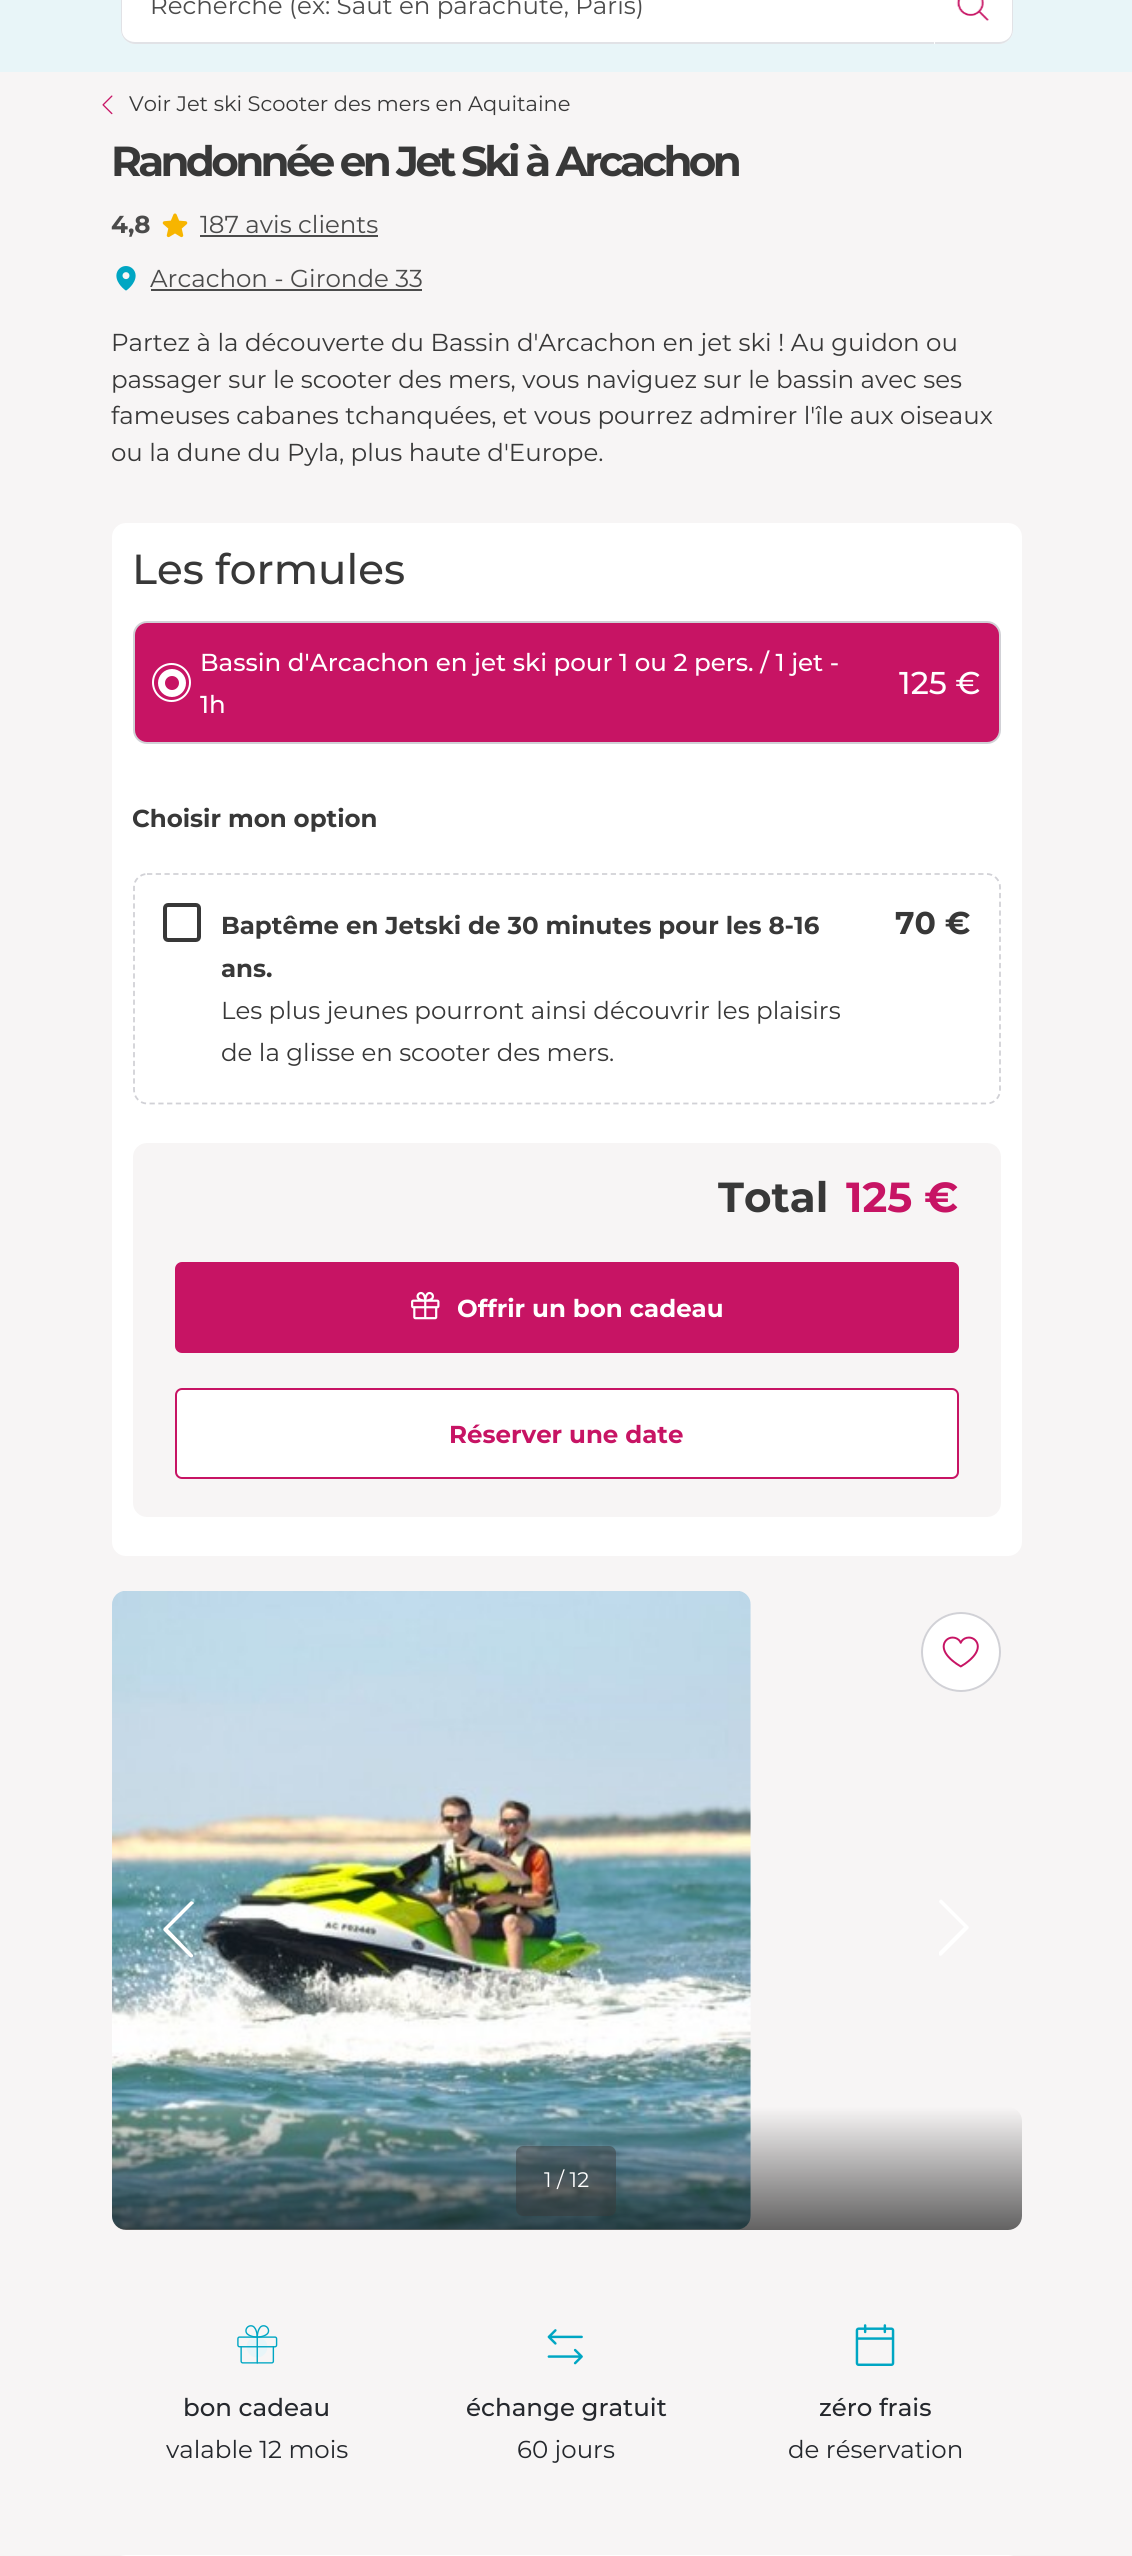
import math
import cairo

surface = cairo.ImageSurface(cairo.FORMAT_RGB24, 1132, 2556)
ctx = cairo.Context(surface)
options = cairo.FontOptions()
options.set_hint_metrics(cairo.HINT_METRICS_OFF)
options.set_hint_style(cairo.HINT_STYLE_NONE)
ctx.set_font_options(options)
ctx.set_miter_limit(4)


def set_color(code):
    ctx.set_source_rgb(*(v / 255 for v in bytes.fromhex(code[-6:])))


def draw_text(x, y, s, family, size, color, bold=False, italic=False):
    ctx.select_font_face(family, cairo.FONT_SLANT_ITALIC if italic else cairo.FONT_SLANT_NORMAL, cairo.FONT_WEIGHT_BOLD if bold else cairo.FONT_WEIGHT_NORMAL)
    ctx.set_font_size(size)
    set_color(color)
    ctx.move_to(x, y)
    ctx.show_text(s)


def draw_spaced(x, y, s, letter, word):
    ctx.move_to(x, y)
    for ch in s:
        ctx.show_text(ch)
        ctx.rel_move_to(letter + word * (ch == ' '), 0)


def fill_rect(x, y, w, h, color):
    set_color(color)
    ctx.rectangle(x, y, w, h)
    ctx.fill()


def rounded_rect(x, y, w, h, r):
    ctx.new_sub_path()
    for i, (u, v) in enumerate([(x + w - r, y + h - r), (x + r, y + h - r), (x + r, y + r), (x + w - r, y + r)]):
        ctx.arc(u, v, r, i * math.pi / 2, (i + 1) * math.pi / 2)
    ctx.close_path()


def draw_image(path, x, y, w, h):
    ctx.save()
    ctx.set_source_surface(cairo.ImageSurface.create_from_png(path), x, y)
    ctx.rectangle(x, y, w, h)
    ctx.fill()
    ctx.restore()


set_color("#f7f5f5")
ctx.paint()
fill_rect(0, 0, 1132, 72, "#e8f5f8")
set_color("#ffffff")
ctx.new_path()
ctx.move_to(935, -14)
ctx.line_to(999, -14)
ctx.curve_to(1006.5, -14, 1013, -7.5, 1013, 0)
ctx.line_to(1013, 30)
ctx.curve_to(1013, 37.5, 1006.5, 44, 999, 44)
ctx.line_to(935, 44)
ctx.close_path()
ctx.fill()
draw_image("assets/img1.png", 956, 0, 33, 21)
set_color("#e1e2e6")
ctx.set_fill_rule(cairo.FILL_RULE_EVEN_ODD)
ctx.new_path()
ctx.move_to(934, -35)
ctx.line_to(999, -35)
ctx.curve_to(1007, -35, 1013, -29, 1013, -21)
ctx.line_to(1013, 30)
ctx.curve_to(1013, 37, 1007, 44, 999, 44)
ctx.line_to(934, 44)
ctx.close_path()
ctx.move_to(934, -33)
ctx.line_to(999, -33)
ctx.curve_to(1006, -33, 1012, -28, 1012, -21)
ctx.line_to(1012, 30)
ctx.curve_to(1012, 37, 1006, 42, 999, 42)
ctx.line_to(934, 42)
ctx.close_path()
ctx.fill()
set_color("#ffffff")
ctx.new_path()
ctx.move_to(135, -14)
ctx.line_to(935, -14)
ctx.line_to(935, 44)
ctx.line_to(135, 44)
ctx.curve_to(127.5, 44, 121, 37.5, 121, 30)
ctx.line_to(121, 0)
ctx.curve_to(121, -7.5, 127.5, -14, 135, -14)
ctx.close_path()
ctx.fill()
set_color("#e1e2e6")
ctx.new_path()
ctx.move_to(135, -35)
ctx.line_to(934, -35)
ctx.line_to(934, 44)
ctx.line_to(135, 44)
ctx.curve_to(127, 44, 121, 37, 121, 30)
ctx.line_to(121, -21)
ctx.curve_to(121, -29, 127, -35, 135, -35)
ctx.close_path()
ctx.move_to(135, -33)
ctx.line_to(934, -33)
ctx.line_to(934, 42)
ctx.line_to(135, 42)
ctx.curve_to(128, 42, 122, 37, 122, 30)
ctx.line_to(122, -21)
ctx.curve_to(122, -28, 128, -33, 135, -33)
ctx.close_path()
ctx.fill()
draw_text(150, 14, "Recherche (ex: Saut en parachute, Paris)", "Montserrat", 24.5, "#4b4b4b")
draw_image("assets/img2.png", 102, 95, 11, 20)
draw_text(129, 111, "Voir Jet ski Scooter des mers en Aquitaine", "Montserrat", 21, "#383838")
ctx.select_font_face("Montserrat", cairo.FONT_SLANT_NORMAL, cairo.FONT_WEIGHT_BOLD)
ctx.set_font_size(42)
draw_spaced(111, 176, "Randonnée en Jet Ski à Arcachon", -3.65, 0)
draw_text(111, 233, "4,8", "Montserrat", 24.5, "#4b4b4b", bold=True)
draw_image("assets/img3.png", 162, 213, 26, 25)
draw_text(200, 233, "187 avis clients", "Montserrat", 24.5, "#4b4b4b")
fill_rect(200, 235, 178, 2, "#4b4b4b")
draw_image("assets/img4.png", 116, 266, 20, 25)
draw_text(150, 287, "Arcachon - Gironde 33", "Montserrat", 24.5, "#4b4b4b")
fill_rect(151, 289, 271, 2, "#4b4b4b")
draw_text(111, 351, "Partez à la découverte du Bassin d'Arcachon en jet ski ! Au guidon ou", "Montserrat", 24.5, "#383838")
draw_text(111, 388, "passager sur le scooter des mers, vous naviguez sur le bassin avec ses", "Montserrat", 24.5, "#383838")
draw_text(111, 424, "fameuses cabanes tchanquées, et vous pourrez admirer l'île aux oiseaux", "Montserrat", 24.5, "#383838")
draw_text(111, 461, "ou la dune du Pyla, plus haute d'Europe.", "Montserrat", 24.5, "#383838")
set_color("#ffffff")
rounded_rect(112, 523, 910, 1033, 14)
ctx.fill()
draw_text(132, 584, "Les formules", "Montserrat Medium", 42, "#383838")
set_color("#c71464")
rounded_rect(134, 622, 866, 121, 13)
ctx.fill_preserve()
set_color("#d1d1d6")
ctx.stroke()
ctx.arc(171.5, 682.5, 18.5, 0, 2 * math.pi)
set_color("#ffffff")
ctx.stroke()
ctx.arc(172, 683, 10.5, 0, 2 * math.pi)
ctx.set_line_width(7)
ctx.stroke()
draw_text(200, 671, "Bassin d'Arcachon en jet ski pour 1 ou 2 pers. / 1 jet -", "Montserrat Medium", 24.5, "#ffffff")
draw_text(200, 713, "1h", "Montserrat Medium", 24.5, "#ffffff")
draw_text(899, 694, "125 €", "Montserrat Medium", 31.5, "#ffffff")
draw_text(132, 827, "Choisir mon option", "Montserrat", 24.5, "#383838", bold=True)
ctx.new_path()
ctx.move_to(147, 874)
ctx.line_to(987, 874)
ctx.curve_to(994, 874, 1000, 880, 1000, 887)
ctx.line_to(1000, 1090)
ctx.curve_to(1000, 1097.5, 994, 1103.5, 987, 1103.5)
ctx.line_to(147, 1103.5)
ctx.curve_to(140, 1103.5, 134, 1097.5, 134, 1090)
ctx.line_to(134, 887)
ctx.curve_to(134, 880, 140, 874, 147, 874)
ctx.close_path()
set_color("#d1d1d6")
ctx.set_line_width(1.8)
ctx.set_dash([5.25, 3.5])
ctx.stroke()
rounded_rect(165, 905, 34, 35, 3)
set_color("#383838")
ctx.set_line_width(4)
ctx.set_dash([])
ctx.stroke()
draw_text(221, 934, "Baptême en Jetski de 30 minutes pour les 8-16", "Montserrat", 24.5, "#383838", bold=True)
draw_text(221, 977, "ans.", "Montserrat", 24.5, "#383838", bold=True)
draw_text(221, 1019, "Les plus jeunes pourront ainsi découvrir les plaisirs", "Montserrat", 24.5, "#383838")
draw_text(221, 1061, "de la glisse en scooter des mers.", "Montserrat", 24.5, "#383838")
draw_text(895, 934, "70 €", "Montserrat", 31.5, "#383838", bold=True)
set_color("#f7f5f5")
rounded_rect(133, 1143, 868, 374, 14)
ctx.fill()
draw_text(718, 1212, "Total", "Montserrat", 42, "#383838", bold=True)
draw_text(846, 1212, "125 €", "Montserrat", 42, "#c71464", bold=True)
rounded_rect(175, 1262, 784, 91, 7)
ctx.fill()
draw_image("assets/img5.png", 411, 1291, 29, 29)
draw_text(457, 1317, "Offrir un bon cadeau", "Montserrat", 24.5, "#ffffff", bold=True)
rounded_rect(176, 1389, 782, 89, 6)
ctx.fill_preserve()
set_color("#c71464")
ctx.set_line_width(2)
ctx.stroke()
draw_text(449, 1443, "Réserver une date", "Montserrat", 24.5, "#c71464", bold=True)
set_color("#ffffff")
ctx.new_path()
ctx.arc(961, 1652, 40, 0, 2 * math.pi)
ctx.fill()
draw_image("assets/img6.png", 942, 1636, 37, 32)
ctx.arc(961, 1652, 39, 0, 2 * math.pi)
set_color("#d1d1d6")
ctx.stroke()
draw_image("assets/img7.png", 112, 1591, 639, 639)
gradient = cairo.LinearGradient(567, 2107, 567, 2230)
gradient.add_color_stop_rgba(0, 0, 0, 0, 0)
gradient.add_color_stop_rgba(1, 0, 0, 0, 0.6)
ctx.set_source(gradient)
rounded_rect(112, 2107, 910, 123, 14)
ctx.fill()
set_color("#ffffff")
ctx.set_fill_rule(cairo.FILL_RULE_WINDING)
ctx.new_path()
ctx.move_to(942, 1900)
ctx.line_to(968, 1926)
ctx.curve_to(969, 1927, 969, 1928, 968, 1929)
ctx.line_to(942, 1955)
ctx.curve_to(941, 1956, 940, 1956, 939, 1955)
ctx.curve_to(939, 1954, 939, 1953, 939, 1952)
ctx.line_to(964, 1927)
ctx.line_to(939, 1902)
ctx.curve_to(939, 1900, 941, 1899, 942, 1900)
ctx.fill()
ctx.new_path()
ctx.move_to(190, 1957)
ctx.line_to(164, 1931)
ctx.curve_to(163, 1930, 163, 1929, 164, 1928)
ctx.line_to(190, 1902)
ctx.curve_to(191, 1901, 192, 1901, 193, 1902)
ctx.curve_to(194, 1902, 194, 1904, 193, 1904)
ctx.line_to(168, 1929)
ctx.line_to(193, 1955)
ctx.curve_to(194, 1957, 191, 1958, 190, 1957)
ctx.fill()
ctx.set_source_rgba(0.22, 0.22, 0.22, 0.48)
rounded_rect(516, 2146, 100, 70, 7)
ctx.fill()
draw_text(544, 2187, "1 / 12", "Montserrat", 21, "#ffffff")
draw_image("assets/img8.png", 237, 2325, 41, 39)
draw_text(183, 2416, "bon cadeau", "Montserrat Medium", 24.5, "#25282d")
draw_text(166, 2458, "valable 12 mois", "Montserrat", 24.5, "#25282d")
draw_image("assets/img9.png", 547, 2329, 36, 36)
draw_text(466, 2416, "échange gratuit", "Montserrat Medium", 24.5, "#25282d")
draw_text(517, 2458, "60 jours", "Montserrat", 24.5, "#25282d")
draw_image("assets/img10.png", 855, 2324, 40, 42)
draw_text(819, 2416, "zéro frais", "Montserrat Medium", 24.5, "#25282d")
draw_text(788, 2458, "de réservation", "Montserrat", 24.5, "#25282d")
set_color("#ffffff")
rounded_rect(112, 2555, 910, 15, 14)
ctx.fill()
surface.write_to_png("output.png")
